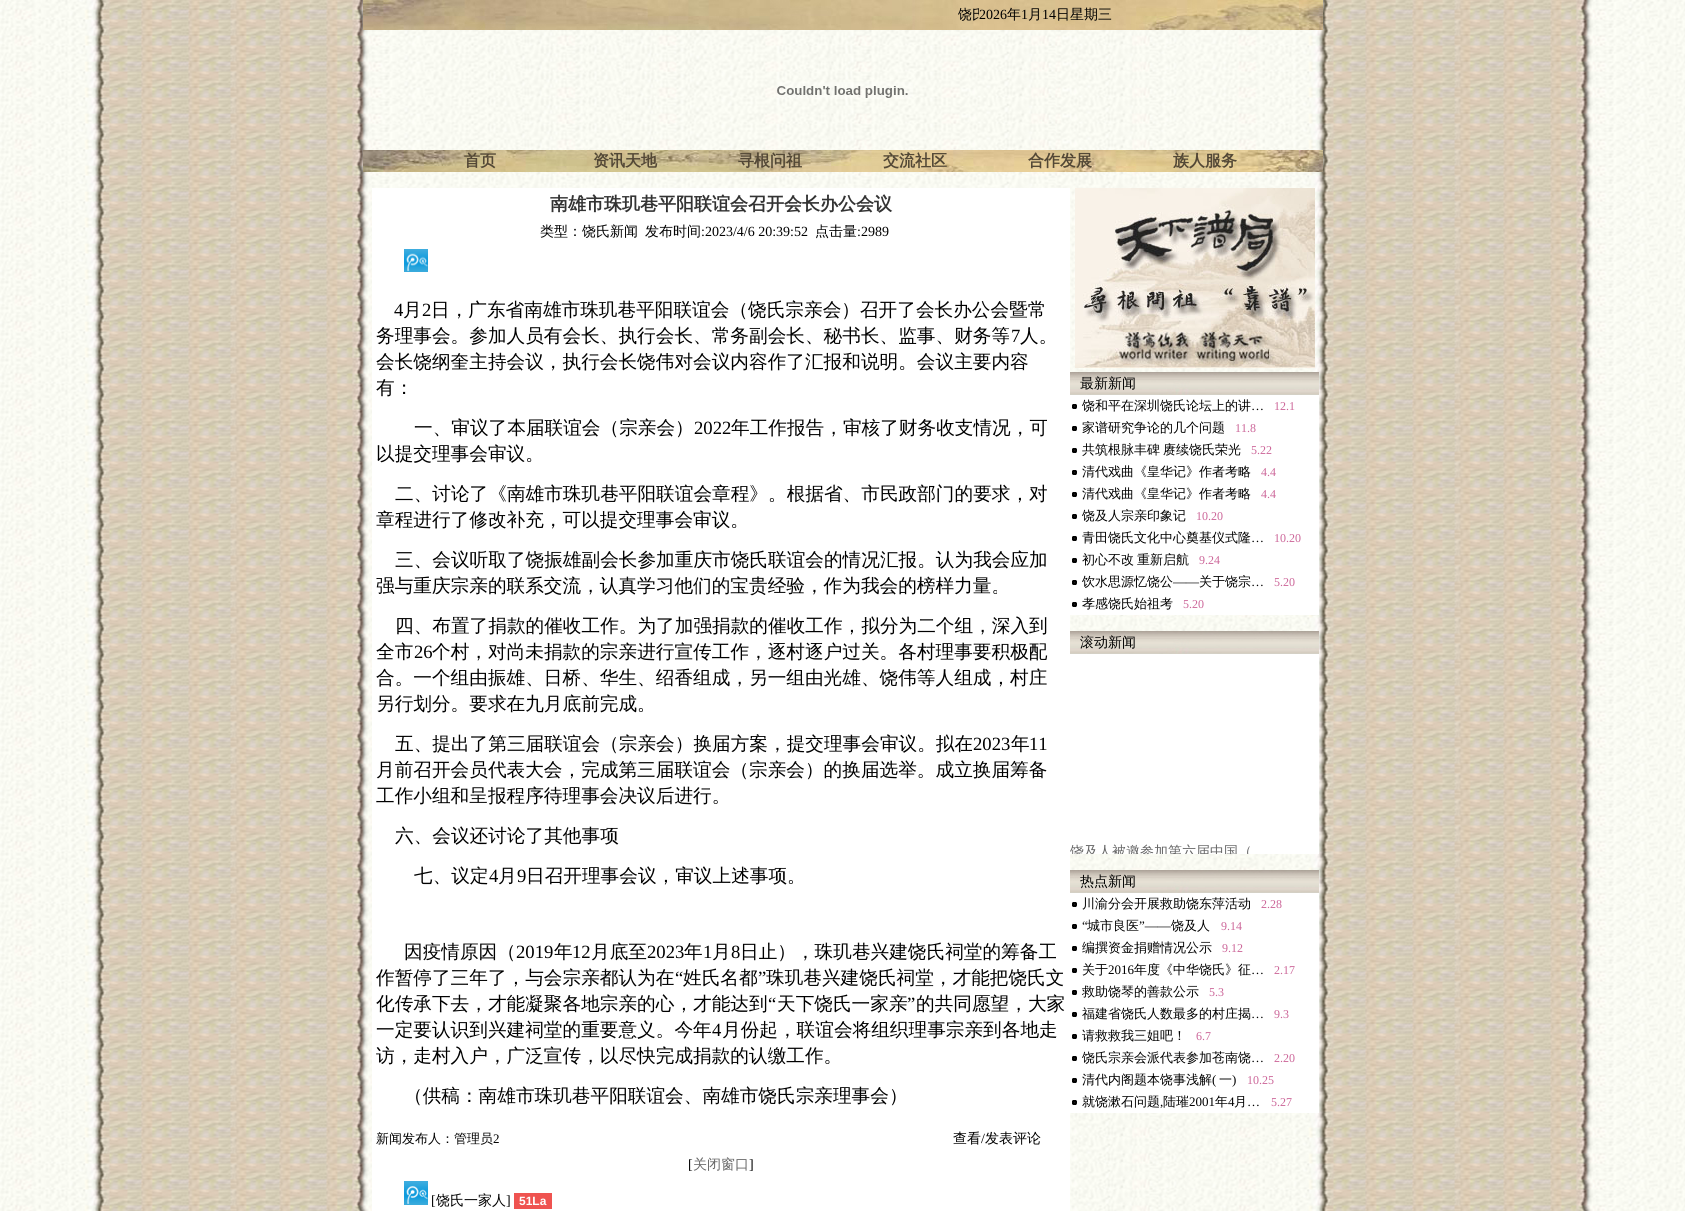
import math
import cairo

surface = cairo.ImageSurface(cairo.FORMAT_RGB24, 1685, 1211)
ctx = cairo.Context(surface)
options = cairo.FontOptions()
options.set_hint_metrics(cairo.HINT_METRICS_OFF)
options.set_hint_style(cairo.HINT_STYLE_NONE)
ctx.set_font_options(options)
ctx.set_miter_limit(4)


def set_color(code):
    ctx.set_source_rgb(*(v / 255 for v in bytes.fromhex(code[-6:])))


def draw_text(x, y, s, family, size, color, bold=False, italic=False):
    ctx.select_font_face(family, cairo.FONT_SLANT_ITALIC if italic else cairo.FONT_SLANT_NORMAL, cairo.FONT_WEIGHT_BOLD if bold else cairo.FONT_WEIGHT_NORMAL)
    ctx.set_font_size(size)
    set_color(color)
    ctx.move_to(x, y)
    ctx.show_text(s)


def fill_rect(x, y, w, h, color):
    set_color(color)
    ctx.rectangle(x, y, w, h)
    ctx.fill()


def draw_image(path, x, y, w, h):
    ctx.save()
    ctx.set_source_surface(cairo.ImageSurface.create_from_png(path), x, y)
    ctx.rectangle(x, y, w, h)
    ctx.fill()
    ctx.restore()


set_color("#ffffff")
ctx.paint()
draw_image("assets/img1.png", 0, 0, 1685, 1211)
draw_image("assets/img2.png", 363, 0, 960, 30)
ctx.save()
ctx.rectangle(363, 6, 616, 18)
ctx.clip()
draw_text(958, 19, "饶氏", "WenQuanYi Zen Hei Medium", 14, "#000000")
ctx.restore()
draw_text(979, 19, "2026", "Liberation Serif", 14, "#000000")
draw_text(1007, 19, "年", "WenQuanYi Zen Hei Medium", 14, "#000000")
draw_text(1021, 19, "1", "Liberation Serif", 14, "#000000")
draw_text(1028, 19, "月", "WenQuanYi Zen Hei Medium", 14, "#000000")
draw_text(1042, 19, "14", "Liberation Serif", 14, "#000000")
draw_text(1056, 19, "日星期三", "WenQuanYi Zen Hei Medium", 14, "#000000")
draw_image("assets/img3.png", 777, 82, 136, 17)
draw_image("assets/img4.png", 363, 150, 960, 22)
draw_text(464, 166, "首页", "WenQuanYi Zen Hei", 16, "#534836", bold=True)
draw_text(593, 166, "资讯天地", "WenQuanYi Zen Hei", 16, "#534836", bold=True)
draw_text(738, 166, "寻根问祖", "WenQuanYi Zen Hei", 16, "#534836", bold=True)
draw_text(883, 166, "交流社区", "WenQuanYi Zen Hei", 16, "#534836", bold=True)
draw_text(1028, 166, "合作发展", "WenQuanYi Zen Hei", 16, "#534836", bold=True)
draw_text(1173, 166, "族人服务", "WenQuanYi Zen Hei", 16, "#534836", bold=True)
fill_rect(372, 188, 698, 1023, "#ffffff")
draw_text(550, 210, "南雄市珠玑巷平阳联谊会召开会长办公会议", "WenQuanYi Zen Hei", 18, "#333333", bold=True)
draw_text(540, 236, "类型：饶氏新闻", "WenQuanYi Zen Hei Medium", 14, "#000000")
draw_text(645, 236, "发布时间", "WenQuanYi Zen Hei Medium", 14, "#000000")
draw_text(701, 236, ":2023/4/6 20:39:52", "Liberation Serif", 14, "#000000")
draw_text(815, 236, "点击量", "WenQuanYi Zen Hei Medium", 14, "#000000")
draw_text(857, 236, ":2989", "Liberation Serif", 14, "#000000")
draw_image("assets/img5.png", 404, 249, 24, 23)
draw_text(394, 316, "4", "Liberation Serif", 18.65, "#000000")
draw_text(403, 316, "月", "WenQuanYi Zen Hei Medium", 18.65, "#000000")
draw_text(422, 316, "2", "Liberation Serif", 18.65, "#000000")
draw_text(431, 316, "日，广东省南雄市珠玑巷平阳联谊会（饶氏宗亲会）召开了会长办公会暨常", "WenQuanYi Zen Hei Medium", 18.65, "#000000")
draw_text(376, 342, "务理事会。参加人员有会长、执行会长、常务副会长、秘书长、监事、财务等", "WenQuanYi Zen Hei Medium", 18.65, "#000000")
draw_text(1011, 342, "7", "Liberation Serif", 18.65, "#000000")
draw_text(1020, 342, "人。", "WenQuanYi Zen Hei Medium", 18.65, "#000000")
draw_text(376, 368, "会长饶纲奎主持会议，执行会长饶伟对会议内容作了汇报和说明。会议主要内容", "WenQuanYi Zen Hei Medium", 18.65, "#000000")
draw_text(376, 394, "有：", "WenQuanYi Zen Hei Medium", 18.65, "#000000")
draw_text(414, 434, "一、审议了本届联谊会（宗亲会）", "WenQuanYi Zen Hei Medium", 18.65, "#000000")
draw_text(694, 434, "2022", "Liberation Serif", 18.65, "#000000")
draw_text(731, 434, "年工作报告，审核了财务收支情况，可", "WenQuanYi Zen Hei Medium", 18.65, "#000000")
draw_text(376, 460, "以提交理事会审议。", "WenQuanYi Zen Hei Medium", 18.65, "#000000")
draw_text(395, 500, "二、讨论了《南雄市珠玑巷平阳联谊会章程》。根据省、市民政部门的要求，对", "WenQuanYi Zen Hei Medium", 18.65, "#000000")
draw_text(376, 526, "章程进行了修改补充，可以提交理事会审议。", "WenQuanYi Zen Hei Medium", 18.65, "#000000")
draw_text(395, 566, "三、会议听取了饶振雄副会长参加重庆市饶氏联谊会的情况汇报。认为我会应加", "WenQuanYi Zen Hei Medium", 18.65, "#000000")
draw_text(376, 592, "强与重庆宗亲的联系交流，认真学习他们的宝贵经验，作为我会的榜样力量。", "WenQuanYi Zen Hei Medium", 18.65, "#000000")
draw_text(395, 632, "四、布置了捐款的催收工作。为了加强捐款的催收工作，拟分为二个组，深入到", "WenQuanYi Zen Hei Medium", 18.65, "#000000")
draw_text(376, 658, "全市", "WenQuanYi Zen Hei Medium", 18.65, "#000000")
draw_text(414, 658, "26", "Liberation Serif", 18.65, "#000000")
draw_text(432, 658, "个村，对尚未捐款的宗亲进行宣传工作，逐村逐户过关。各村理事要积极配", "WenQuanYi Zen Hei Medium", 18.65, "#000000")
draw_text(376, 684, "合。一个组由振雄、日桥、华生、绍香组成，另一组由光雄、饶伟等人组成，村庄", "WenQuanYi Zen Hei Medium", 18.65, "#000000")
draw_text(376, 710, "另行划分。要求在九月底前完成。", "WenQuanYi Zen Hei Medium", 18.65, "#000000")
draw_text(395, 750, "五、提出了第三届联谊会（宗亲会）换届方案，提交理事会审议。拟在", "WenQuanYi Zen Hei Medium", 18.65, "#000000")
draw_text(973, 750, "2023", "Liberation Serif", 18.65, "#000000")
draw_text(1011, 750, "年", "WenQuanYi Zen Hei Medium", 18.65, "#000000")
draw_text(1029, 750, "11", "Liberation Serif", 18.65, "#000000")
draw_text(376, 776, "月前召开会员代表大会，完成第三届联谊会（宗亲会）的换届选举。成立换届筹备", "WenQuanYi Zen Hei Medium", 18.65, "#000000")
draw_text(376, 802, "工作小组和呈报程序待理事会决议后进行。", "WenQuanYi Zen Hei Medium", 18.65, "#000000")
draw_text(395, 842, "六、会议还讨论了其他事项", "WenQuanYi Zen Hei Medium", 18.65, "#000000")
draw_text(414, 882, "七、议定", "WenQuanYi Zen Hei Medium", 18.65, "#000000")
draw_text(489, 882, "4", "Liberation Serif", 18.65, "#000000")
draw_text(498, 882, "月", "WenQuanYi Zen Hei Medium", 18.65, "#000000")
draw_text(517, 882, "9", "Liberation Serif", 18.65, "#000000")
draw_text(526, 882, "日召开理事会议，审议上述事项。", "WenQuanYi Zen Hei Medium", 18.65, "#000000")
draw_text(404, 958, "因疫情原因（", "WenQuanYi Zen Hei Medium", 18.65, "#000000")
draw_text(516, 958, "2019", "Liberation Serif", 18.65, "#000000")
draw_text(554, 958, "年", "WenQuanYi Zen Hei Medium", 18.65, "#000000")
draw_text(572, 958, "12", "Liberation Serif", 18.65, "#000000")
draw_text(591, 958, "月底至", "WenQuanYi Zen Hei Medium", 18.65, "#000000")
draw_text(647, 958, "2023", "Liberation Serif", 18.65, "#000000")
draw_text(684, 958, "年", "WenQuanYi Zen Hei Medium", 18.65, "#000000")
draw_text(703, 958, "1", "Liberation Serif", 18.65, "#000000")
draw_text(712, 958, "月", "WenQuanYi Zen Hei Medium", 18.65, "#000000")
draw_text(731, 958, "8", "Liberation Serif", 18.65, "#000000")
draw_text(740, 958, "日止），珠玑巷兴建饶氏祠堂的筹备工", "WenQuanYi Zen Hei Medium", 18.65, "#000000")
draw_text(376, 984, "作暂停了三年了，与会宗亲都认为在", "WenQuanYi Zen Hei Medium", 18.65, "#000000")
draw_text(675, 984, "“", "Liberation Serif", 18.65, "#000000")
draw_text(683, 984, "姓氏名都", "WenQuanYi Zen Hei Medium", 18.65, "#000000")
draw_text(758, 984, "”", "Liberation Serif", 18.65, "#000000")
draw_text(766, 984, "珠玑巷兴建饶氏祠堂，才能把饶氏文", "WenQuanYi Zen Hei Medium", 18.65, "#000000")
draw_text(376, 1010, "化传承下去，才能凝聚各地宗亲的心，才能达到", "WenQuanYi Zen Hei Medium", 18.65, "#000000")
draw_text(768, 1010, "“", "Liberation Serif", 18.65, "#000000")
draw_text(777, 1010, "天下饶氏一家亲", "WenQuanYi Zen Hei Medium", 18.65, "#000000")
draw_text(907, 1010, "”", "Liberation Serif", 18.65, "#000000")
draw_text(916, 1010, "的共同愿望，大家", "WenQuanYi Zen Hei Medium", 18.65, "#000000")
draw_text(376, 1036, "一定要认识到兴建祠堂的重要意义。今年", "WenQuanYi Zen Hei Medium", 18.65, "#000000")
draw_text(712, 1036, "4", "Liberation Serif", 18.65, "#000000")
draw_text(722, 1036, "月份起，联谊会将组织理事宗亲到各地走", "WenQuanYi Zen Hei Medium", 18.65, "#000000")
draw_text(376, 1062, "访，走村入户，广泛宣传，以尽快完成捐款的认缴工作。", "WenQuanYi Zen Hei Medium", 18.65, "#000000")
draw_text(404, 1102, "（供稿：南雄市珠玑巷平阳联谊会、南雄市饶氏宗亲理事会）", "WenQuanYi Zen Hei Medium", 18.65, "#000000")
draw_text(376, 1143, "新闻发布人：管理员", "WenQuanYi Zen Hei Medium", 13, "#000000")
draw_text(493, 1143, "2", "Liberation Serif", 13, "#000000")
draw_text(953, 1143, "查看", "WenQuanYi Zen Hei Medium", 14, "#000000")
draw_text(981, 1143, "/", "Liberation Serif", 14, "#000000")
draw_text(985, 1143, "发表评论", "WenQuanYi Zen Hei Medium", 14, "#000000")
draw_text(688, 1169, "[", "Liberation Serif", 14, "#000000")
draw_text(693, 1169, "关闭窗口", "WenQuanYi Zen Hei Medium", 14, "#666666")
draw_text(749, 1169, "]", "Liberation Serif", 14, "#000000")
draw_image("assets/img6.png", 404, 1181, 24, 24)
draw_text(431, 1205, "[", "Liberation Serif", 14, "#000000")
draw_text(436, 1205, "饶氏一家人", "WenQuanYi Zen Hei Medium", 14, "#000000")
draw_text(506, 1205, "]", "Liberation Serif", 14, "#000000")
fill_rect(514, 1193, 38, 16, "#ef5350")
draw_text(519, 1205, "51La", "Liberation Sans", 12, "#ffffff", bold=True)
draw_image("assets/img7.png", 1075, 188, 240, 180)
fill_rect(1070, 395, 249, 220, "#ffffff")
draw_image("assets/img8.png", 1070, 372, 249, 23)
draw_text(1080, 388, "最新新闻", "WenQuanYi Zen Hei Medium", 14, "#000000")
draw_image("assets/img9.png", 1072, 404, 5, 5)
draw_text(1082, 410, "饶和平在深圳饶氏论坛上的讲", "WenQuanYi Zen Hei Medium", 13, "#000000")
draw_text(1251, 410, "…", "Liberation Serif", 13, "#000000")
draw_text(1274, 410, "12.1", "Liberation Serif", 12, "#cc6699")
draw_image("assets/img9.png", 1072, 426, 5, 5)
draw_text(1082, 432, "家谱研究争论的几个问题", "WenQuanYi Zen Hei Medium", 13, "#000000")
draw_text(1235, 432, "11.8", "Liberation Serif", 12, "#cc6699")
draw_image("assets/img9.png", 1072, 448, 5, 5)
draw_text(1082, 454, "共筑根脉丰碑", "WenQuanYi Zen Hei Medium", 13, "#000000")
draw_text(1163, 454, "赓续饶氏荣光", "WenQuanYi Zen Hei Medium", 13, "#000000")
draw_text(1251, 454, "5.22", "Liberation Serif", 12, "#cc6699")
draw_image("assets/img9.png", 1072, 470, 5, 5)
draw_text(1082, 476, "清代戏曲《皇华记》作者考略", "WenQuanYi Zen Hei Medium", 13, "#000000")
draw_text(1261, 476, "4.4", "Liberation Serif", 12, "#cc6699")
draw_image("assets/img9.png", 1072, 492, 5, 5)
draw_text(1082, 498, "清代戏曲《皇华记》作者考略", "WenQuanYi Zen Hei Medium", 13, "#000000")
draw_text(1261, 498, "4.4", "Liberation Serif", 12, "#cc6699")
draw_image("assets/img9.png", 1072, 514, 5, 5)
draw_text(1082, 520, "饶及人宗亲印象记", "WenQuanYi Zen Hei Medium", 13, "#000000")
draw_text(1196, 520, "10.20", "Liberation Serif", 12, "#cc6699")
draw_image("assets/img9.png", 1072, 536, 5, 5)
draw_text(1082, 542, "青田饶氏文化中心奠基仪式隆", "WenQuanYi Zen Hei Medium", 13, "#000000")
draw_text(1251, 542, "…", "Liberation Serif", 13, "#000000")
draw_text(1274, 542, "10.20", "Liberation Serif", 12, "#cc6699")
draw_image("assets/img9.png", 1072, 558, 5, 5)
draw_text(1082, 564, "初心不改", "WenQuanYi Zen Hei Medium", 13, "#000000")
draw_text(1137, 564, "重新启航", "WenQuanYi Zen Hei Medium", 13, "#000000")
draw_text(1199, 564, "9.24", "Liberation Serif", 12, "#cc6699")
draw_image("assets/img9.png", 1072, 580, 5, 5)
draw_text(1082, 586, "饮水思源忆饶公", "WenQuanYi Zen Hei Medium", 13, "#000000")
draw_text(1173, 586, "——", "Liberation Serif", 13, "#000000")
draw_text(1199, 586, "关于饶宗", "WenQuanYi Zen Hei Medium", 13, "#000000")
draw_text(1274, 586, "5.20", "Liberation Serif", 12, "#cc6699")
draw_text(1251, 586, "…", "Liberation Serif", 13, "#000000")
draw_image("assets/img9.png", 1072, 602, 5, 5)
draw_text(1082, 608, "孝感饶氏始祖考", "WenQuanYi Zen Hei Medium", 13, "#000000")
draw_text(1183, 608, "5.20", "Liberation Serif", 12, "#cc6699")
fill_rect(1070, 654, 249, 200, "#ffffff")
draw_image("assets/img8.png", 1070, 631, 249, 23)
draw_text(1080, 647, "滚动新闻", "WenQuanYi Zen Hei Medium", 14, "#000000")
ctx.save()
ctx.rectangle(1070, 654, 249, 200)
ctx.clip()
draw_text(1070, 856, "饶及人被邀参加第六届中国（", "WenQuanYi Zen Hei Medium", 14, "#666666")
ctx.restore()
fill_rect(1070, 893, 249, 220, "#ffffff")
draw_image("assets/img8.png", 1070, 870, 249, 23)
draw_text(1080, 886, "热点新闻", "WenQuanYi Zen Hei Medium", 14, "#000000")
draw_image("assets/img9.png", 1072, 902, 5, 5)
draw_text(1082, 908, "川渝分会开展救助饶东萍活动", "WenQuanYi Zen Hei Medium", 13, "#000000")
draw_text(1261, 908, "2.28", "Liberation Serif", 12, "#cc6699")
draw_image("assets/img9.png", 1072, 924, 5, 5)
draw_text(1082, 930, "“", "Liberation Serif", 13, "#000000")
draw_text(1087, 930, "城市良医", "WenQuanYi Zen Hei Medium", 13, "#000000")
draw_text(1139, 930, "”——", "Liberation Serif", 13, "#000000")
draw_text(1171, 930, "饶及人", "WenQuanYi Zen Hei Medium", 13, "#000000")
draw_text(1221, 930, "9.14", "Liberation Serif", 12, "#cc6699")
draw_image("assets/img9.png", 1072, 946, 5, 5)
draw_text(1082, 952, "编撰资金捐赠情况公示", "WenQuanYi Zen Hei Medium", 13, "#000000")
draw_text(1222, 952, "9.12", "Liberation Serif", 12, "#cc6699")
draw_image("assets/img9.png", 1072, 968, 5, 5)
draw_text(1082, 974, "关于", "WenQuanYi Zen Hei Medium", 13, "#000000")
draw_text(1108, 974, "2016", "Liberation Serif", 13, "#000000")
draw_text(1134, 974, "年度《中华饶氏》征", "WenQuanYi Zen Hei Medium", 13, "#000000")
draw_text(1251, 974, "…", "Liberation Serif", 13, "#000000")
draw_text(1274, 974, "2.17", "Liberation Serif", 12, "#cc6699")
draw_image("assets/img9.png", 1072, 990, 5, 5)
draw_text(1082, 996, "救助饶琴的善款公示", "WenQuanYi Zen Hei Medium", 13, "#000000")
draw_text(1209, 996, "5.3", "Liberation Serif", 12, "#cc6699")
draw_image("assets/img9.png", 1072, 1012, 5, 5)
draw_text(1082, 1018, "福建省饶氏人数最多的村庄揭", "WenQuanYi Zen Hei Medium", 13, "#000000")
draw_text(1251, 1018, "…", "Liberation Serif", 13, "#000000")
draw_text(1274, 1018, "9.3", "Liberation Serif", 12, "#cc6699")
draw_image("assets/img9.png", 1072, 1034, 5, 5)
draw_text(1082, 1040, "请救救我三姐吧！", "WenQuanYi Zen Hei Medium", 13, "#000000")
draw_text(1196, 1040, "6.7", "Liberation Serif", 12, "#cc6699")
draw_image("assets/img9.png", 1072, 1056, 5, 5)
draw_text(1082, 1062, "饶氏宗亲会派代表参加苍南饶", "WenQuanYi Zen Hei Medium", 13, "#000000")
draw_text(1251, 1062, "…", "Liberation Serif", 13, "#000000")
draw_text(1274, 1062, "2.20", "Liberation Serif", 12, "#cc6699")
draw_image("assets/img9.png", 1072, 1078, 5, 5)
draw_text(1082, 1084, "清代内阁题本饶事浅解", "WenQuanYi Zen Hei Medium", 13, "#000000")
draw_text(1212, 1084, "(", "Liberation Serif", 13, "#000000")
draw_text(1219, 1084, "一", "WenQuanYi Zen Hei Medium", 13, "#000000")
draw_text(1232, 1084, ")", "Liberation Serif", 13, "#000000")
draw_text(1247, 1084, "10.25", "Liberation Serif", 12, "#cc6699")
draw_image("assets/img9.png", 1072, 1100, 5, 5)
draw_text(1082, 1106, "就饶漱石问题", "WenQuanYi Zen Hei Medium", 13, "#000000")
draw_text(1160, 1106, ",", "Liberation Serif", 13, "#000000")
draw_text(1163, 1106, "陆璀", "WenQuanYi Zen Hei Medium", 13, "#000000")
draw_text(1189, 1106, "2001", "Liberation Serif", 13, "#000000")
draw_text(1215, 1106, "年", "WenQuanYi Zen Hei Medium", 13, "#000000")
draw_text(1228, 1106, "4", "Liberation Serif", 13, "#000000")
draw_text(1234, 1106, "月", "WenQuanYi Zen Hei Medium", 13, "#000000")
draw_text(1247, 1106, "…", "Liberation Serif", 13, "#000000")
draw_text(1271, 1106, "5.27", "Liberation Serif", 12, "#cc6699")
surface.write_to_png("output.png")
